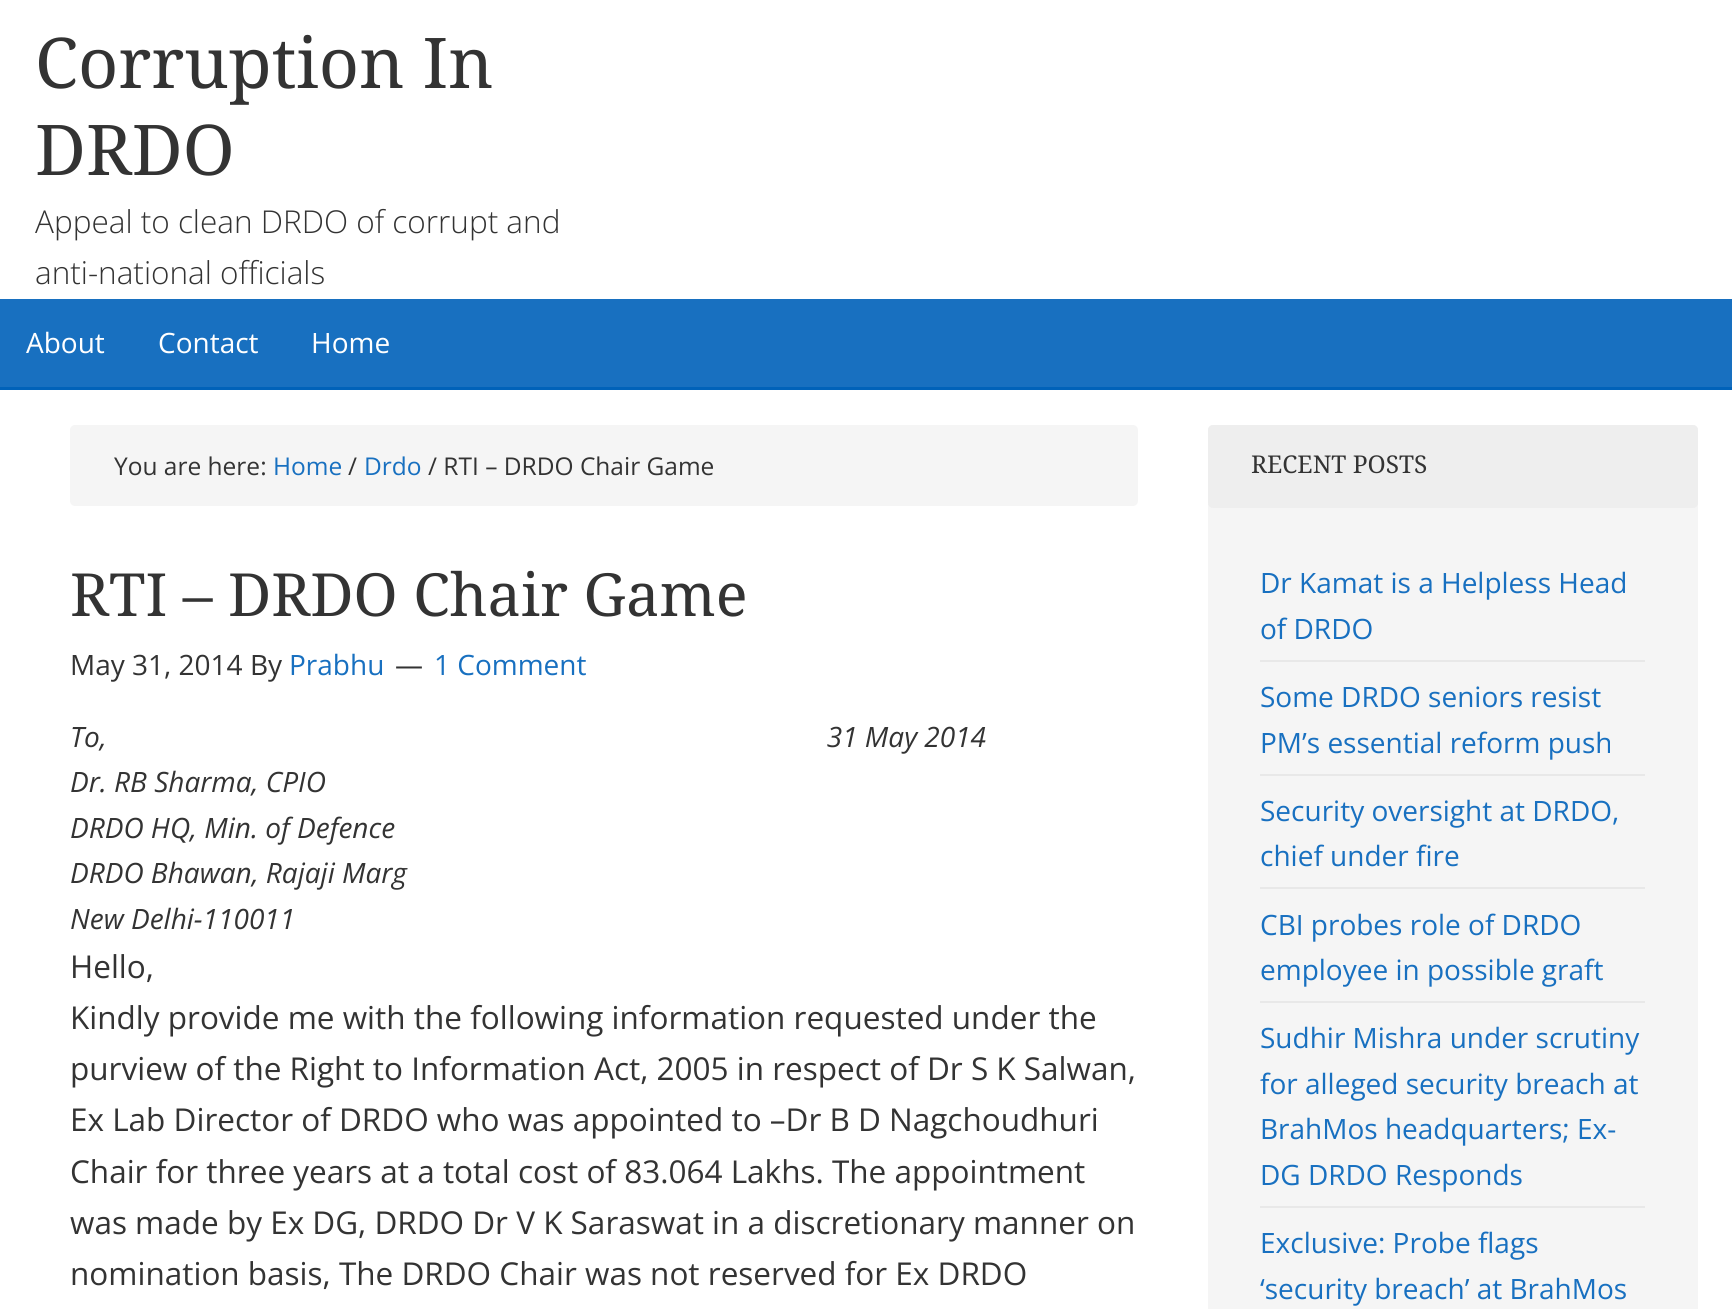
import math
import cairo

surface = cairo.ImageSurface(cairo.FORMAT_RGB24, 1732, 1309)
ctx = cairo.Context(surface)
options = cairo.FontOptions()
options.set_hint_metrics(cairo.HINT_METRICS_OFF)
options.set_hint_style(cairo.HINT_STYLE_NONE)
ctx.set_font_options(options)
ctx.set_miter_limit(4)


def set_color(code):
    ctx.set_source_rgb(*(v / 255 for v in bytes.fromhex(code[-6:])))


def draw_text(x, y, s, family, size, color, bold=False, italic=False):
    ctx.select_font_face(family, cairo.FONT_SLANT_ITALIC if italic else cairo.FONT_SLANT_NORMAL, cairo.FONT_WEIGHT_BOLD if bold else cairo.FONT_WEIGHT_NORMAL)
    ctx.set_font_size(size)
    set_color(color)
    ctx.move_to(x, y)
    ctx.show_text(s)


def fill_rect(x, y, w, h, color):
    set_color(color)
    ctx.rectangle(x, y, w, h)
    ctx.fill()


def rounded_rect(x, y, w, h, r):
    ctx.new_sub_path()
    for i, (u, v) in enumerate([(x + w - r, y + h - r), (x + r, y + h - r), (x + r, y + r), (x + w - r, y + r)]):
        ctx.arc(u, v, r, i * math.pi / 2, (i + 1) * math.pi / 2)
    ctx.close_path()


set_color("#ffffff")
ctx.paint()
draw_text(35, 88, "Corruption In", "Droid Serif", 70, "#333333")
draw_text(35, 175, "DRDO", "Droid Serif", 70, "#333333")
draw_text(35, 233, "Appeal to clean DRDO of corrupt and", "Open Sans Light", 31.5, "#333333")
draw_text(35, 284, "anti-national officials", "Open Sans Light", 31.5, "#333333")
fill_rect(0, 299, 1732, 88, "#1870c0")
fill_rect(0, 387, 1732, 3, "#0062b9")
draw_text(26, 353, "About", "Open Sans", 28, "#ffffff")
draw_text(158, 353, "Contact", "Open Sans", 28, "#ffffff")
draw_text(311, 353, "Home", "Open Sans", 28, "#ffffff")
set_color("#f5f5f5")
rounded_rect(70, 425, 1068, 81, 5)
ctx.fill()
draw_text(114, 475, "You are here:", "Open Sans", 24.5, "#333333")
draw_text(273, 475, "Home", "Open Sans", 24.5, "#1870c0")
draw_text(348, 475, "/", "Open Sans", 24.5, "#333333")
draw_text(364, 475, "Drdo", "Open Sans", 24.5, "#1870c0")
draw_text(428, 475, "/ RTI – DRDO Chair Game", "Open Sans", 24.5, "#333333")
draw_text(70, 616, "RTI – DRDO Chair Game", "Droid Serif", 59.5, "#333333")
draw_text(70, 675, "May 31, 2014 By", "Open Sans", 28, "#333333")
draw_text(289, 675, "Prabhu", "Open Sans", 28, "#1870c0")
draw_text(395, 675, "—", "Open Sans", 28, "#333333")
draw_text(434, 675, "1 Comment", "Open Sans", 28, "#1870c0")
draw_text(70, 747, "To,                                                                                                   31 May 2014", "Open Sans", 28, "#333333", italic=True)
draw_text(70, 792, "Dr. RB Sharma, CPIO", "Open Sans", 28, "#333333", italic=True)
draw_text(70, 838, "DRDO HQ, Min. of Defence", "Open Sans", 28, "#333333", italic=True)
draw_text(70, 883, "DRDO Bhawan, Rajaji Marg", "Open Sans", 28, "#333333", italic=True)
draw_text(70, 929, "New Delhi-110011", "Open Sans", 28, "#333333", italic=True)
draw_text(70, 978, "Hello,", "Open Sans", 31.5, "#333333")
draw_text(70, 1029, "Kindly provide me with the following information requested under the", "Open Sans", 31.5, "#333333")
draw_text(70, 1080, "purview of the Right to Information Act, 2005 in respect of Dr S K Salwan,", "Open Sans", 31.5, "#333333")
draw_text(70, 1131, "Ex Lab Director of DRDO who was appointed to –Dr B D Nagchoudhuri", "Open Sans", 31.5, "#333333")
draw_text(70, 1183, "Chair for three years at a total cost of 83.064 Lakhs. The appointment", "Open Sans", 31.5, "#333333")
draw_text(70, 1234, "was made by Ex DG, DRDO Dr V K Saraswat in a discretionary manner on", "Open Sans", 31.5, "#333333")
draw_text(70, 1285, "nomination basis, The DRDO Chair was not reserved for Ex DRDO", "Open Sans", 31.5, "#333333")
set_color("#f5f5f5")
rounded_rect(1208, 425, 490, 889, 5)
ctx.fill()
set_color("#eeeeee")
rounded_rect(1208, 425, 490, 83, 5)
ctx.fill()
draw_text(1251, 473, "RECENT POSTS", "Droid Serif", 24.5, "#333333")
fill_rect(1260, 660, 385, 2, "#e8e8e8")
draw_text(1260, 593, "Dr Kamat is a Helpless Head", "Open Sans", 28, "#1870c0")
draw_text(1260, 639, "of DRDO", "Open Sans", 28, "#1870c0")
fill_rect(1260, 774, 385, 2, "#e8e8e8")
draw_text(1260, 707, "Some DRDO seniors resist", "Open Sans", 28, "#1870c0")
draw_text(1260, 753, "PM’s essential reform push", "Open Sans", 28, "#1870c0")
fill_rect(1260, 887, 385, 2, "#e8e8e8")
draw_text(1260, 821, "Security oversight at DRDO,", "Open Sans", 28, "#1870c0")
draw_text(1260, 866, "chief under fire", "Open Sans", 28, "#1870c0")
fill_rect(1260, 1001, 385, 2, "#e8e8e8")
draw_text(1260, 935, "CBI probes role of DRDO", "Open Sans", 28, "#1870c0")
draw_text(1260, 980, "employee in possible graft", "Open Sans", 28, "#1870c0")
fill_rect(1260, 1206, 385, 2, "#e8e8e8")
draw_text(1260, 1048, "Sudhir Mishra under scrutiny", "Open Sans", 28, "#1870c0")
draw_text(1260, 1094, "for alleged security breach at", "Open Sans", 28, "#1870c0")
draw_text(1260, 1139, "BrahMos headquarters; Ex-", "Open Sans", 28, "#1870c0")
draw_text(1260, 1185, "DG DRDO Responds", "Open Sans", 28, "#1870c0")
draw_text(1260, 1253, "Exclusive: Probe flags", "Open Sans", 28, "#1870c0")
draw_text(1260, 1299, "‘security breach’ at BrahMos", "Open Sans", 28, "#1870c0")
surface.write_to_png("output.png")
